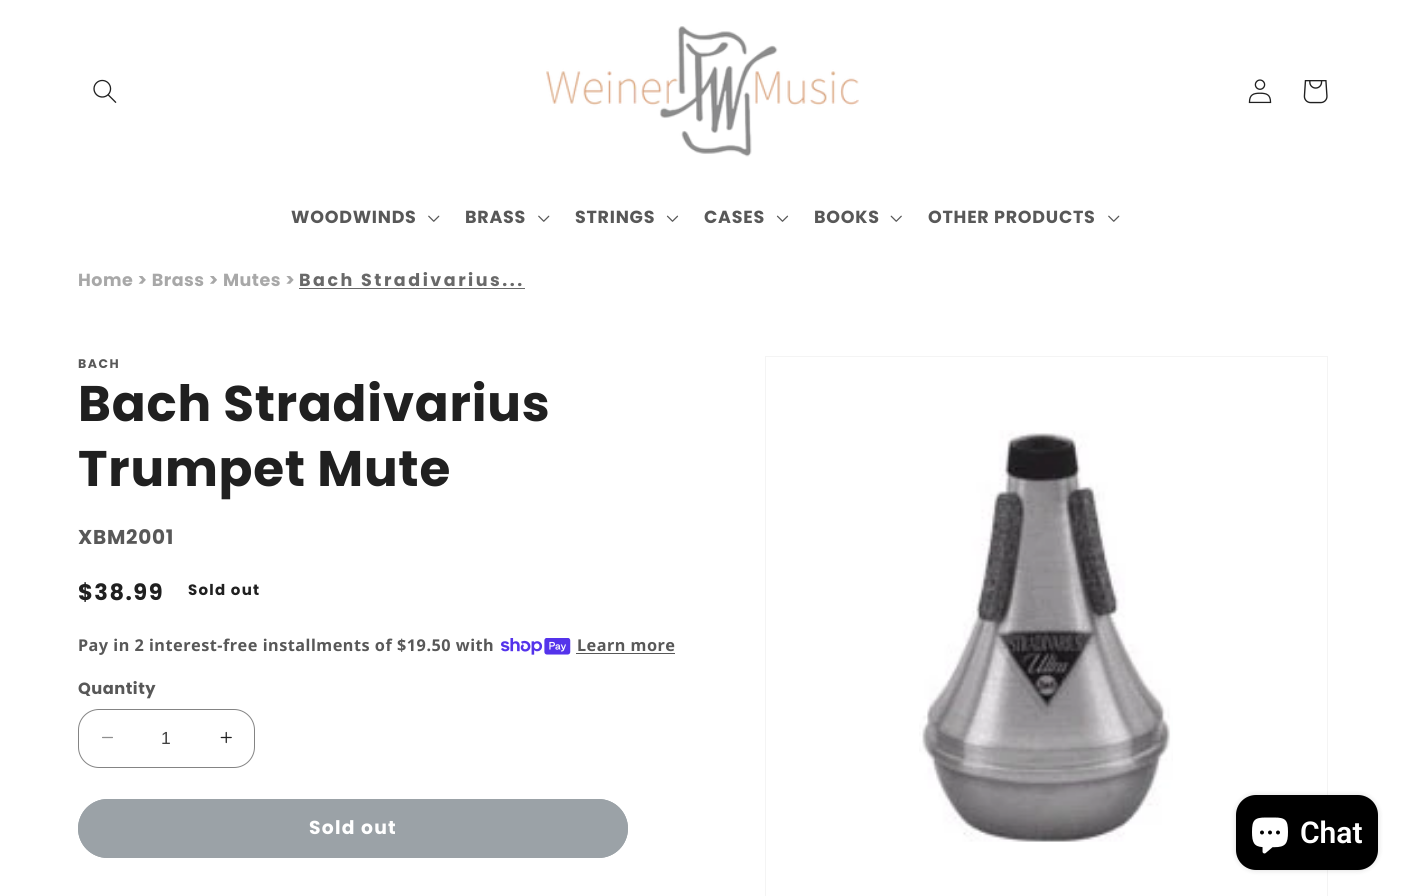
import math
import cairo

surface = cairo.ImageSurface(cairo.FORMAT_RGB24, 1405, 896)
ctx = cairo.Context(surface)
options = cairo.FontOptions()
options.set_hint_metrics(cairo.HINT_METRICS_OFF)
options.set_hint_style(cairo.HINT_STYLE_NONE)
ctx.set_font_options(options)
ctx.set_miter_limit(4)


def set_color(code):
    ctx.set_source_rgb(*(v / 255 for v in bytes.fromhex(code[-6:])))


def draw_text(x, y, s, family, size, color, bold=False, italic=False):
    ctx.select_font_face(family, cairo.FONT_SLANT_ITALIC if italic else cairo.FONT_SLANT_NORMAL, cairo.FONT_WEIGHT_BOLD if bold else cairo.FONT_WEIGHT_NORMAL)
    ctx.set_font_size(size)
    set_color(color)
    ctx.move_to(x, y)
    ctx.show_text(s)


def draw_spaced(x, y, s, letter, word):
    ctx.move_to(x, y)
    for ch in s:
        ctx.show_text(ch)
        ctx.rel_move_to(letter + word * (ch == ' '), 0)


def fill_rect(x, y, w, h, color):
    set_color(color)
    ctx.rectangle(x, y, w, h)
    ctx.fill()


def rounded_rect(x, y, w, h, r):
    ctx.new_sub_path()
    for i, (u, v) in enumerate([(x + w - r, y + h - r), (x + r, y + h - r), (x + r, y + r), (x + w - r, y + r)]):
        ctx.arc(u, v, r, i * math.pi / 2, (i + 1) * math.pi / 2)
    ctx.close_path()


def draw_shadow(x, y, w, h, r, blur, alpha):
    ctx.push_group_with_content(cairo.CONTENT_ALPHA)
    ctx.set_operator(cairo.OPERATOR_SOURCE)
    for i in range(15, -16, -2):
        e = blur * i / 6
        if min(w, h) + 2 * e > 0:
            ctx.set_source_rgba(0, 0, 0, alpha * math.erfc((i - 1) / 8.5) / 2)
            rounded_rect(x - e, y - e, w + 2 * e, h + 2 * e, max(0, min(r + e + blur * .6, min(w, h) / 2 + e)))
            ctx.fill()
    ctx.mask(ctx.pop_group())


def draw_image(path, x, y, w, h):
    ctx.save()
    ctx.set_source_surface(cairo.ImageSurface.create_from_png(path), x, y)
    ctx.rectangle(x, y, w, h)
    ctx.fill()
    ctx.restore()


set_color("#ffffff")
ctx.paint()
draw_image("assets/img1.png", 93, 79, 24, 24)
draw_image("assets/img2.png", 546, 26, 313, 131)
draw_image("assets/img3.png", 1248, 79, 24, 25)
draw_image("assets/img4.png", 1303, 80, 25, 24)
ctx.select_font_face("Poppins", cairo.FONT_SLANT_NORMAL, cairo.FONT_WEIGHT_BOLD)
ctx.set_font_size(17.5)
set_color("#585858")
draw_spaced(291, 223, "WOODWINDS", 0.75, 0)
draw_image("assets/img5.png", 428, 215, 12, 7)
draw_spaced(465, 223, "BRASS", 0.75, 0)
draw_image("assets/img5.png", 538, 215, 12, 7)
draw_spaced(575, 223, "STRINGS", 0.75, 0)
draw_image("assets/img6.png", 666, 215, 13, 7)
draw_spaced(704, 223, "CASES", 0.75, 0)
draw_image("assets/img6.png", 776, 215, 13, 7)
draw_spaced(814, 223, "BOOKS", 0.75, 0)
draw_image("assets/img7.png", 890, 215, 12, 7)
draw_spaced(928, 223, "OTHER PRODUCTS", 0.75, 0)
draw_image("assets/img5.png", 1108, 215, 12, 7)
set_color("#a8a8a8")
draw_spaced(78, 286, "Home > Brass > Mutes >", 0.5, 0)
set_color("#696969")
draw_spaced(299, 286, "Bach Stradivarius...", 2.5, 0)
fill_rect(299, 288, 226, 1, "#696969")
ctx.set_font_size(12.5)
set_color("#585858")
draw_spaced(78, 368, "BACH", 1.5, 0)
ctx.set_font_size(50)
set_color("#202020")
draw_spaced(78, 421, "Bach Stradivarius", 0.75, 0)
draw_spaced(78, 486, "Trumpet Mute", 0.75, 0)
ctx.set_font_size(20)
set_color("#585858")
draw_spaced(78, 544, "XBM2001", 0.75, 0)
ctx.set_font_size(22.5)
set_color("#202020")
draw_spaced(78, 600, "$38.99", 1.5, 0)
ctx.set_font_size(15)
draw_spaced(188, 595, "Sold out", 1.25, 0)
ctx.select_font_face("Noto Sans", cairo.FONT_SLANT_NORMAL, cairo.FONT_WEIGHT_BOLD)
ctx.set_font_size(16.25)
set_color("#585858")
draw_spaced(78, 651, "Pay in 2 interest-free installments of $19.50 with", 0.5, 0)
draw_image("assets/img8.png", 501, 638, 70, 17)
draw_spaced(577, 651, "Learn more", 0.5, 0)
fill_rect(576, 653, 99, 1, "#585858")
ctx.select_font_face("Poppins", cairo.FONT_SLANT_NORMAL, cairo.FONT_WEIGHT_BOLD)
draw_spaced(78, 694, "Quantity", 0.5, 0)
draw_image("assets/img9.png", 102, 736, 11, 3)
draw_image("assets/img10.png", 220, 731, 12, 13)
rounded_rect(78.5, 709.5, 176, 58, 20.5)
set_color("#848484")
ctx.set_line_width(1)
ctx.stroke()
draw_text(161, 744, "1", "Liberation Sans", 17.5, "#414141")
set_color("#9ba2a7")
rounded_rect(78, 799, 550, 59, 29.5)
ctx.fill()
rounded_rect(78.5, 799.5, 549, 58, 29)
ctx.stroke()
ctx.select_font_face("Poppins", cairo.FONT_SLANT_NORMAL, cairo.FONT_WEIGHT_BOLD)
ctx.set_font_size(18.75)
set_color("#ffffff")
draw_spaced(309, 834, "Sold out", 1.25, 0)
ctx.rectangle(765.5, 356.5, 562, 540)
set_color("#f4f4f4")
ctx.stroke()
draw_image("assets/img11.png", 919, 430, 254, 412)
set_color("#000000")
draw_shadow(1236, 795, 142, 75, 20, 3, 0.15)
set_color("#000000")
rounded_rect(1236, 795, 142, 75, 20)
ctx.fill()
draw_image("assets/img12.png", 1252, 817, 36, 37)
draw_text(1300, 843, "Chat", "Roboto SemiBold", 30, "#ffffff")
surface.write_to_png("output.png")
